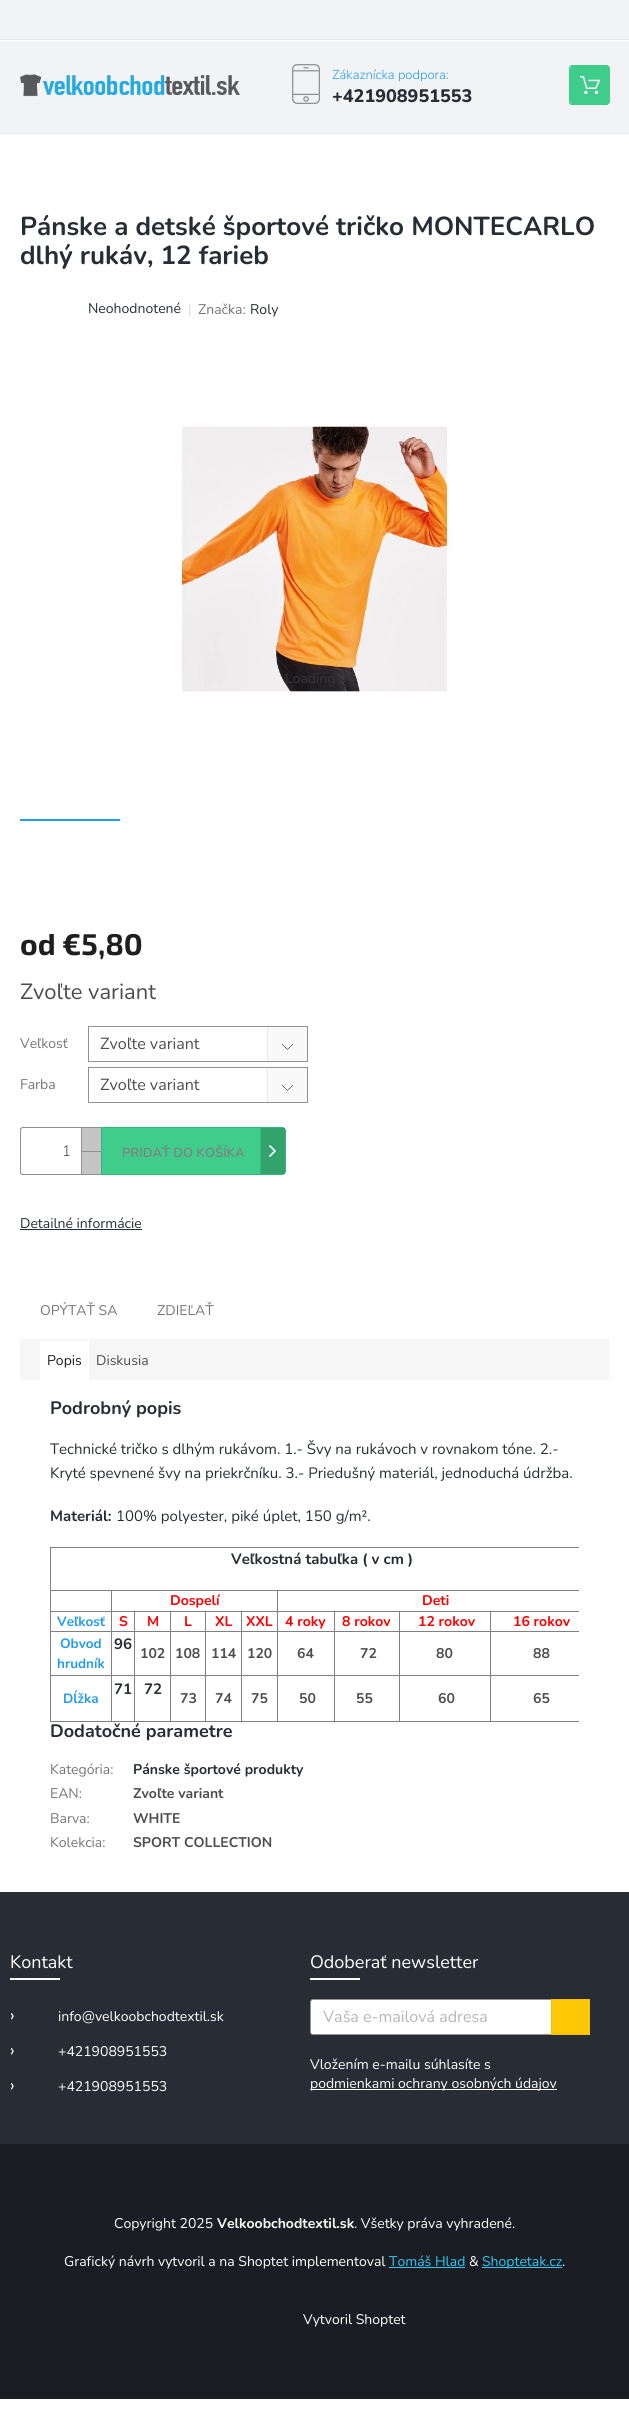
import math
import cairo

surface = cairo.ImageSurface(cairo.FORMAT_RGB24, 629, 2420)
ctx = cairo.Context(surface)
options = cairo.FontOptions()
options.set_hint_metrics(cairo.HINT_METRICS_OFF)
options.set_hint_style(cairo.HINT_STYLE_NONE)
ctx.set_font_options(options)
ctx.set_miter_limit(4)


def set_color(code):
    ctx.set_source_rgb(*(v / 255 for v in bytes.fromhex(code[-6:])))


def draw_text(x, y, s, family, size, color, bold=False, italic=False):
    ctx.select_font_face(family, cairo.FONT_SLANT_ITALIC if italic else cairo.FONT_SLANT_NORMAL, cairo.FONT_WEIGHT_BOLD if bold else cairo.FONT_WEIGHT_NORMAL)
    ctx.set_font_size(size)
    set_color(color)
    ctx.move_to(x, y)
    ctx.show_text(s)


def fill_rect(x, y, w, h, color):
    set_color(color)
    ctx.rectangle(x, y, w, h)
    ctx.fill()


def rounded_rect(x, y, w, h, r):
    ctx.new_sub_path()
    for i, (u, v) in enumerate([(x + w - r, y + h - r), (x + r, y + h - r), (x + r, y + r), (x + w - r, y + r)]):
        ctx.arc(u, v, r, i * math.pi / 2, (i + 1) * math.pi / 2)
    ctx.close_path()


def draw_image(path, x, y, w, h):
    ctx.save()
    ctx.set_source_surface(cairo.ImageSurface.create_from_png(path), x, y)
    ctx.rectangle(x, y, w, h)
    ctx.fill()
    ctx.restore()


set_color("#ffffff")
ctx.paint()
fill_rect(0, 0, 629, 39, "#f2f3f5")
fill_rect(0, 39, 629, 1, "#e7e8e9")
fill_rect(0, 41, 629, 92, "#f2f3f5")
fill_rect(0, 133, 629, 1, "#e7e8e9")
draw_image("assets/img1.png", 20, 74, 220, 23)
draw_image("assets/img2.png", 292, 64, 28, 40)
draw_text(332, 79, "Zákaznícka podpora:", "Nunito Light", 13, "#239ceb")
draw_text(332, 102, "+421908951553", "Nunito ExtraBold", 18, "#282d35")
rounded_rect(569.5, 65.5, 39, 39, 2.5)
set_color("#40cc8a")
ctx.set_line_width(1)
ctx.stroke()
rounded_rect(570, 65, 40, 40, 4)
ctx.fill()
draw_image("assets/img3.png", 580, 76, 20, 18)
draw_text(20, 235, "Pánske a detské športové tričko MONTECARLO", "Nunito", 26, "#282d35", bold=True)
draw_text(20, 264, "dlhý rukáv, 12 farieb", "Nunito", 26, "#282d35", bold=True)
draw_text(88, 313, "Neohodnotené", "Nunito", 14, "#282d35")
draw_text(188, 314, "|", "Nunito", 14, "#dadada")
draw_text(198, 314, "Značka:", "Nunito", 14, "#767676")
draw_text(250, 314, "Roly", "Nunito", 14, "#282d35")
draw_image("assets/img4.png", 176, 425, 276, 268)
draw_text(285, 683, "Loading", "Nunito", 14, "#373537")
fill_rect(20, 819, 100, 2, "#239ceb")
draw_text(20, 955, "od €5,80", "Exo 2", 30, "#1f1f1f", bold=True)
draw_text(20, 999, "Zvoľte variant", "Nunito", 22, "#4d4d4d")
draw_text(20, 1048, "Veľkosť", "Nunito", 14, "#767676")
draw_image("assets/img5.png", 267, 1027, 40, 34)
ctx.rectangle(88.5, 1026.5, 219, 35)
set_color("#919191")
ctx.stroke()
draw_text(100, 1049, "Zvoľte variant", "Nunito", 16.1, "#4d4d4d")
draw_text(20, 1089, "Farba", "Nunito", 14, "#767676")
draw_image("assets/img5.png", 267, 1068, 40, 34)
ctx.rectangle(88.5, 1067.5, 219, 35)
set_color("#919191")
ctx.stroke()
draw_text(100, 1090, "Zvoľte variant", "Nunito", 16.1, "#4d4d4d")
set_color("#919191")
ctx.set_fill_rule(cairo.FILL_RULE_EVEN_ODD)
ctx.new_path()
ctx.move_to(23, 1127)
ctx.line_to(101, 1127)
ctx.line_to(101, 1175)
ctx.line_to(23, 1175)
ctx.curve_to(21, 1175, 20, 1174, 20, 1172)
ctx.line_to(20, 1130)
ctx.curve_to(20, 1128, 21, 1127, 23, 1127)
ctx.close_path()
ctx.move_to(23, 1128)
ctx.line_to(101, 1128)
ctx.line_to(101, 1174)
ctx.line_to(23, 1174)
ctx.curve_to(22, 1174, 21, 1173, 21, 1172)
ctx.line_to(21, 1130)
ctx.curve_to(21, 1129, 22, 1128, 23, 1128)
ctx.close_path()
ctx.fill()
draw_text(62, 1156, "1", "Nunito Light", 15, "#4d4d4d")
fill_rect(81, 1128, 1, 23, "#919191")
fill_rect(82, 1128, 19, 23, "#c5c5c5")
fill_rect(81, 1151, 20, 1, "#919191")
fill_rect(81, 1151, 1, 23, "#919191")
fill_rect(82, 1152, 19, 22, "#c5c5c5")
set_color("#40cc8a")
ctx.new_path()
ctx.move_to(101.5, 1127.5)
ctx.line_to(282, 1127.5)
ctx.curve_to(284, 1127.5, 285.5, 1129, 285.5, 1131)
ctx.line_to(285.5, 1171)
ctx.curve_to(285.5, 1173, 284, 1174.5, 282, 1174.5)
ctx.line_to(101.5, 1174.5)
ctx.close_path()
ctx.fill_preserve()
set_color("#32b979")
ctx.stroke()
draw_text(122, 1157, "PRIDAŤ DO KOŠÍKA", "Nunito SemiBold", 13, "#808080")
ctx.set_source_rgba(0, 0, 0, 0.2)
ctx.rectangle(261, 1128, 24, 46)
ctx.fill()
draw_image("assets/img6.png", 269, 1145, 7, 12)
fill_rect(260, 1128, 1, 46, "#32b979")
draw_text(20, 1228, "Detailné informácie", "Nunito", 14, "#282d35")
fill_rect(20, 1229, 122, 1, "#282d35")
draw_text(40, 1315, "OPÝTAŤ SA", "Nunito", 14, "#767676")
draw_text(157, 1315, "ZDIEĽAŤ", "Nunito", 14, "#767676")
fill_rect(20, 1339, 589, 41, "#f6f6f6")
fill_rect(40, 1341, 49, 39, "#ffffff")
draw_text(47, 1365, "Popis", "Nunito", 14, "#1f1f1f")
draw_text(96, 1365, "Diskusia", "Nunito", 14, "#4d4d4d")
draw_text(50, 1414, "Podrobný popis", "Nunito", 18, "#282d35", bold=True)
draw_text(50, 1454, "Technické tričko s dlhým rukávom. 1.- Švy na rukávoch v rovnakom tóne. 2.-", "Nunito", 15, "#282d35")
draw_text(50, 1478, "Kryté spevnené švy na priekrčníku. 3.- Priedušný materiál, jednoduchá údržba.", "Nunito", 15, "#282d35")
draw_text(50, 1521, "Materiál:", "Nunito", 15, "#282d35", bold=True)
draw_text(116, 1521, "100% polyester, piké úplet, 150 g/m².", "Nunito", 15, "#282d35")
fill_rect(50, 1547, 529, 1, "#808080")
fill_rect(50, 1721, 529, 1, "#808080")
fill_rect(50, 1547, 1, 175, "#808080")
draw_text(231, 1564, "Veľkostná tabuľka ( v cm )", "Nunito", 15, "#282d35", bold=True)
fill_rect(277, 1590, 302, 1, "#808080")
fill_rect(490, 1611, 89, 1, "#808080")
fill_rect(490, 1631, 89, 1, "#808080")
fill_rect(490, 1675, 89, 1, "#808080")
fill_rect(490, 1675, 1, 47, "#808080")
fill_rect(399, 1675, 92, 1, "#808080")
fill_rect(490, 1631, 1, 45, "#808080")
fill_rect(399, 1631, 92, 1, "#808080")
fill_rect(490, 1611, 1, 21, "#808080")
fill_rect(399, 1611, 92, 1, "#808080")
fill_rect(399, 1675, 1, 47, "#808080")
fill_rect(334, 1675, 66, 1, "#808080")
fill_rect(399, 1631, 1, 45, "#808080")
fill_rect(334, 1631, 66, 1, "#808080")
fill_rect(399, 1611, 1, 21, "#808080")
fill_rect(334, 1611, 66, 1, "#808080")
fill_rect(334, 1675, 1, 47, "#808080")
fill_rect(277, 1675, 58, 1, "#808080")
fill_rect(334, 1631, 1, 45, "#808080")
fill_rect(277, 1631, 58, 1, "#808080")
fill_rect(334, 1611, 1, 21, "#808080")
fill_rect(277, 1611, 58, 1, "#808080")
fill_rect(277, 1675, 1, 47, "#808080")
fill_rect(241, 1675, 37, 1, "#808080")
fill_rect(277, 1631, 1, 45, "#808080")
fill_rect(241, 1631, 37, 1, "#808080")
fill_rect(277, 1611, 1, 21, "#808080")
fill_rect(241, 1611, 37, 1, "#808080")
fill_rect(277, 1590, 1, 22, "#808080")
fill_rect(111, 1590, 167, 1, "#808080")
fill_rect(241, 1675, 1, 47, "#808080")
fill_rect(205, 1675, 37, 1, "#808080")
fill_rect(241, 1631, 1, 45, "#808080")
fill_rect(205, 1631, 37, 1, "#808080")
fill_rect(241, 1611, 1, 21, "#808080")
fill_rect(205, 1611, 37, 1, "#808080")
fill_rect(205, 1675, 1, 47, "#808080")
fill_rect(170, 1675, 36, 1, "#808080")
fill_rect(205, 1631, 1, 45, "#808080")
fill_rect(170, 1631, 36, 1, "#808080")
fill_rect(205, 1611, 1, 21, "#808080")
fill_rect(170, 1611, 36, 1, "#808080")
fill_rect(170, 1675, 1, 47, "#808080")
fill_rect(134, 1675, 37, 1, "#808080")
fill_rect(170, 1631, 1, 45, "#808080")
fill_rect(134, 1631, 37, 1, "#808080")
fill_rect(170, 1611, 1, 21, "#808080")
fill_rect(134, 1611, 37, 1, "#808080")
fill_rect(134, 1675, 1, 47, "#808080")
fill_rect(111, 1675, 24, 1, "#808080")
fill_rect(134, 1631, 1, 45, "#808080")
fill_rect(111, 1631, 24, 1, "#808080")
fill_rect(134, 1611, 1, 21, "#808080")
fill_rect(111, 1611, 24, 1, "#808080")
fill_rect(111, 1675, 1, 47, "#808080")
fill_rect(50, 1675, 62, 1, "#808080")
fill_rect(111, 1631, 1, 45, "#808080")
fill_rect(50, 1631, 62, 1, "#808080")
fill_rect(111, 1611, 1, 21, "#808080")
fill_rect(50, 1611, 62, 1, "#808080")
fill_rect(111, 1590, 1, 22, "#808080")
fill_rect(50, 1590, 62, 1, "#808080")
draw_text(170, 1605, "Dospelí", "Nunito", 14, "#ff0000", bold=True)
draw_text(422, 1605, "Deti", "Nunito", 14, "#ff0000", bold=True)
draw_text(57, 1626, "Veľkosť", "Nunito", 13.5, "#239ceb", bold=True)
draw_text(119, 1626, "S", "Nunito", 14, "#ff0000", bold=True)
draw_text(147, 1626, "M", "Nunito", 14, "#ff0000", bold=True)
draw_text(184, 1626, "L", "Nunito", 14, "#ff0000", bold=True)
draw_text(215, 1626, "XL", "Nunito", 14, "#ff0000", bold=True)
draw_text(246, 1626, "XXL", "Nunito", 14, "#ff0000", bold=True)
draw_text(285, 1626, "4 roky", "Nunito", 14, "#ff0000", bold=True)
draw_text(342, 1626, "8 rokov", "Nunito", 14, "#ff0000", bold=True)
draw_text(418, 1626, "12 rokov", "Nunito", 14, "#ff0000", bold=True)
draw_text(513, 1626, "16 rokov", "Nunito", 14, "#ff0000", bold=True)
draw_text(60, 1648, "Obvod", "Nunito", 13.5, "#239ceb", bold=True)
draw_text(57, 1668, "hrudník", "Nunito", 13.5, "#239ceb", bold=True)
draw_text(114, 1649, "96", "Nunito", 15, "#282d35", bold=True)
draw_text(140, 1658, "102", "Nunito", 14, "#4d4d4d", bold=True)
draw_text(175, 1658, "108", "Nunito", 14, "#4d4d4d", bold=True)
draw_text(211, 1658, "114", "Nunito", 14, "#4d4d4d", bold=True)
draw_text(247, 1658, "120", "Nunito", 14, "#4d4d4d", bold=True)
draw_text(297, 1658, "64", "Nunito", 14, "#4d4d4d", bold=True)
draw_text(360, 1658, "72", "Nunito", 14, "#4d4d4d", bold=True)
draw_text(436, 1658, "80", "Nunito", 14, "#4d4d4d", bold=True)
draw_text(533, 1658, "88", "Nunito", 14, "#4d4d4d", bold=True)
draw_text(63, 1703, "Dĺžka", "Nunito", 13.5, "#239ceb", bold=True)
draw_text(114, 1694, "71", "Nunito", 15, "#282d35", bold=True)
draw_text(144, 1694, "72", "Nunito", 15, "#282d35", bold=True)
draw_text(180, 1703, "73", "Nunito", 14, "#4d4d4d", bold=True)
draw_text(215, 1703, "74", "Nunito", 14, "#4d4d4d", bold=True)
draw_text(251, 1703, "75", "Nunito", 14, "#4d4d4d", bold=True)
draw_text(299, 1703, "50", "Nunito", 14, "#4d4d4d", bold=True)
draw_text(356, 1703, "55", "Nunito", 14, "#4d4d4d", bold=True)
draw_text(438, 1703, "60", "Nunito", 14, "#4d4d4d", bold=True)
draw_text(533, 1703, "65", "Nunito", 14, "#4d4d4d", bold=True)
draw_text(50, 1737, "Dodatočné parametre", "Nunito", 18, "#282d35", bold=True)
draw_text(50, 1774, "Kategória:", "Nunito", 14, "#767676")
draw_text(133, 1774, "Pánske športové produkty", "Nunito", 14, "#282d35", bold=True)
draw_text(50, 1798, "EAN:", "Nunito", 14, "#767676")
draw_text(133, 1798, "Zvoľte variant", "Nunito", 14, "#4d4d4d", bold=True)
draw_text(50, 1823, "Barva:", "Nunito", 14, "#767676")
draw_text(133, 1823, "WHITE", "Nunito", 14, "#4d4d4d", bold=True)
draw_text(50, 1847, "Kolekcia:", "Nunito", 14, "#767676")
draw_text(133, 1847, "SPORT COLLECTION", "Nunito", 14, "#4d4d4d", bold=True)
fill_rect(0, 1892, 629, 252, "#282d35")
draw_text(10, 1968, "Kontakt", "Nunito", 18, "#ffffff")
fill_rect(10, 1978, 50, 2, "#ffffff")
draw_text(10, 2021, "›", "Nunito", 18, "#ffffff")
draw_text(58, 2021, "info@velkoobchodtextil.sk", "Nunito", 14, "#ffffff")
draw_text(10, 2056, "›", "Nunito", 18, "#ffffff")
draw_text(58, 2056, "+421908951553", "Nunito", 14, "#ffffff")
draw_text(10, 2091, "›", "Nunito", 18, "#ffffff")
draw_text(58, 2091, "+421908951553", "Nunito", 14, "#ffffff")
draw_text(310, 1968, "Odoberať newsletter", "Nunito", 18, "#ffffff")
fill_rect(310, 1978, 50, 2, "#ffffff")
rounded_rect(310.5, 1999.5, 279, 35, 2.5)
ctx.fill_preserve()
set_color("#919191")
ctx.stroke()
draw_text(323, 2022, "Vaša e-mailová adresa", "Nunito", 16.1, "#b6b6b6")
set_color("#ffc807")
ctx.rectangle(551.5, 1999.5, 38, 35)
ctx.fill_preserve()
set_color("#ffbb00")
ctx.stroke()
draw_text(310, 2069, "Vložením e-mailu súhlasíte s", "Nunito", 14, "#ffffff")
fill_rect(310, 2089, 247, 1, "#ffffff")
draw_text(310, 2088, "podmienkami ochrany osobných údajov", "Nunito", 14, "#ffffff")
fill_rect(0, 2144, 629, 255, "#1a1e24")
draw_text(114, 2228, "Copyright 2025", "Nunito", 14, "#ffffff")
draw_text(217, 2228, "Velkoobchodtextil.sk", "Nunito", 14, "#ffffff", bold=True)
draw_text(354, 2228, ". Všetky práva vyhradené.", "Nunito", 14, "#ffffff")
draw_text(64, 2266, "Grafický návrh vytvoril a na Shoptet implementoval", "Nunito", 14, "#ffffff")
draw_text(389, 2266, "Tomáš Hlad", "Nunito", 14, "#30c9f3")
fill_rect(389, 2267, 76, 1, "#30c9f3")
draw_text(469, 2266, "&", "Nunito", 14, "#ffffff")
fill_rect(482, 2267, 80, 1, "#30c9f3")
draw_text(482, 2266, "Shoptetak.cz", "Nunito", 14, "#30c9f3")
draw_text(562, 2266, ".", "Nunito", 14, "#ffffff")
draw_text(303, 2324, "Vytvoril Shoptet", "Nunito", 14, "#ffffff")
surface.write_to_png("output.png")
